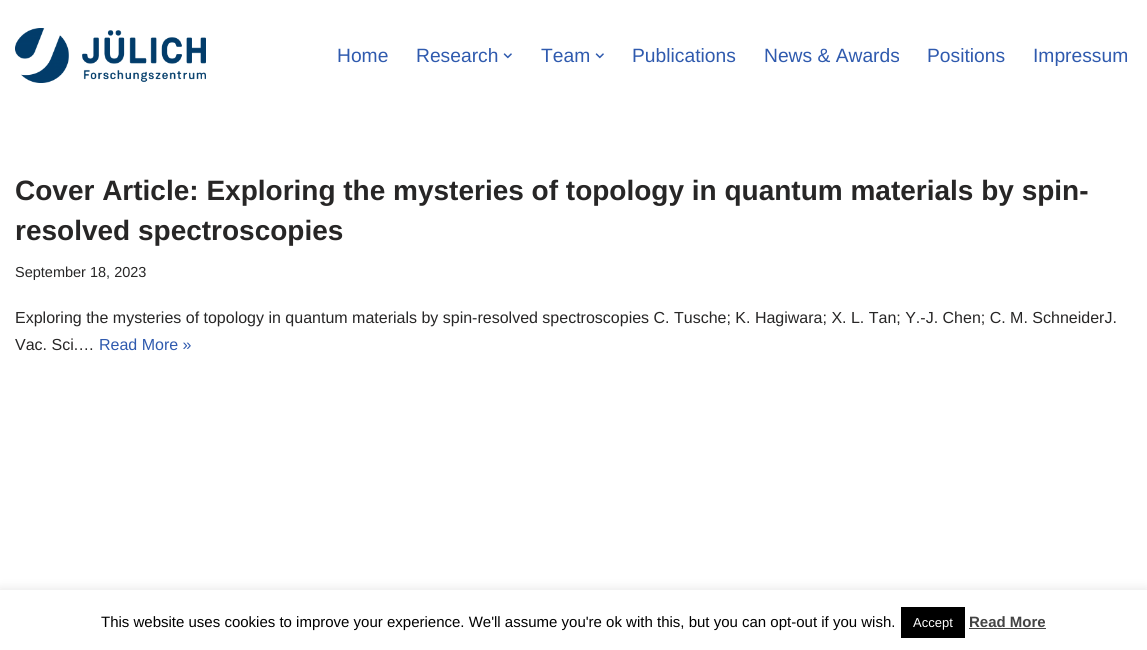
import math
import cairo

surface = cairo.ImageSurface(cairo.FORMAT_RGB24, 1147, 650)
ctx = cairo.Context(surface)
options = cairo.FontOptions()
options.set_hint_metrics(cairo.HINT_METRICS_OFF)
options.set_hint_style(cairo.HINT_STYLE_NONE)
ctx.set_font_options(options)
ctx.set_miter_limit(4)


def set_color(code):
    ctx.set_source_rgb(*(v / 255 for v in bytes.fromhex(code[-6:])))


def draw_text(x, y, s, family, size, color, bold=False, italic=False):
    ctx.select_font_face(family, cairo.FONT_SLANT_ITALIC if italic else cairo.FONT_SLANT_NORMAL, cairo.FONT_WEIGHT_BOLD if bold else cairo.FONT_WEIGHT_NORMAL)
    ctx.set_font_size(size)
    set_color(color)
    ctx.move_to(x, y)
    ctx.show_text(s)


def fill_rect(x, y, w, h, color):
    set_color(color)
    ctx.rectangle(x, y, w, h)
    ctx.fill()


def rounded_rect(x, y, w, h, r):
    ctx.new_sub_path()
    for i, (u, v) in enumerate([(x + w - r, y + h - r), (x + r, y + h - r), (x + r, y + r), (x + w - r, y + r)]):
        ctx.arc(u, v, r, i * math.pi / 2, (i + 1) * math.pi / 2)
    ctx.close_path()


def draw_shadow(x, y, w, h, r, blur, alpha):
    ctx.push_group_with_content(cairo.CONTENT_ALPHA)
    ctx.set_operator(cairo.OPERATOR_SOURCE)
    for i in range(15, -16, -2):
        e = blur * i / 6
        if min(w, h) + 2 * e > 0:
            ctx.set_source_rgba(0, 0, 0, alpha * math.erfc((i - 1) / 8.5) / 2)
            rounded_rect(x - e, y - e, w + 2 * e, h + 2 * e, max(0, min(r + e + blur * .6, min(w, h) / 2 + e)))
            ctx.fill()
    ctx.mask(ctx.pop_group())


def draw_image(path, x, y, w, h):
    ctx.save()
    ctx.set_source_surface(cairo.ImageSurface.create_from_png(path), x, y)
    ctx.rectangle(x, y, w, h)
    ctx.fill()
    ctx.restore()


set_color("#ffffff")
ctx.paint()
draw_image("assets/img1.png", 15, 28, 191, 55)
draw_text(337, 62, "Home", "Liberation Sans", 19.25, "#2f5aae")
draw_text(416, 62, "Research", "Liberation Sans", 19.25, "#2f5aae")
draw_image("assets/img2.png", 503, 53, 9, 6)
draw_text(541, 62, "Team", "Liberation Sans", 19.25, "#2f5aae")
draw_image("assets/img2.png", 595, 53, 9, 6)
draw_text(632, 62, "Publications", "Liberation Sans", 19.25, "#2f5aae")
draw_text(764, 62, "News & Awards", "Liberation Sans", 19.25, "#2f5aae")
draw_text(927, 62, "Positions", "Liberation Sans", 19.25, "#2f5aae")
draw_text(1033, 62, "Impressum", "Liberation Sans", 19.25, "#2f5aae")
draw_text(15, 200, "Cover Article: Exploring the mysteries of topology in quantum materials by spin-", "Liberation Sans", 28, "#272626", bold=True)
draw_text(15, 240, "resolved spectroscopies", "Liberation Sans", 28, "#272626", bold=True)
draw_text(15, 277, "September 18, 2023", "Liberation Sans", 14.5, "#272626")
draw_text(15, 323, "Exploring the mysteries of topology in quantum materials by spin-resolved spectroscopies C. Tusche; K. Hagiwara; X. L. Tan; Y.-J. Chen; C. M. SchneiderJ.", "Liberation Sans", 16, "#272626")
draw_text(15, 350, "Vac. Sci.…", "Liberation Sans", 16, "#272626")
draw_text(99, 350, "Read More »", "Liberation Sans", 16, "#2f5aae")
set_color("#acabab")
draw_shadow(0, 589, 1147, 60, 0, 5, 0.3)
fill_rect(0, 590, 1147, 60, "#ffffff")
draw_text(101, 627, "This website uses cookies to improve your experience. We'll assume you're ok with this, but you can opt-out if you wish.", "Liberation Sans", 15, "#000000")
fill_rect(901, 607, 64, 31, "#000000")
draw_text(913, 627, "Accept", "Liberation Sans", 13, "#ffffff")
draw_text(969, 627, "Read More", "Liberation Sans", 15, "#444444", bold=True)
fill_rect(969, 628, 77, 1, "#444444")
surface.write_to_png("output.png")
